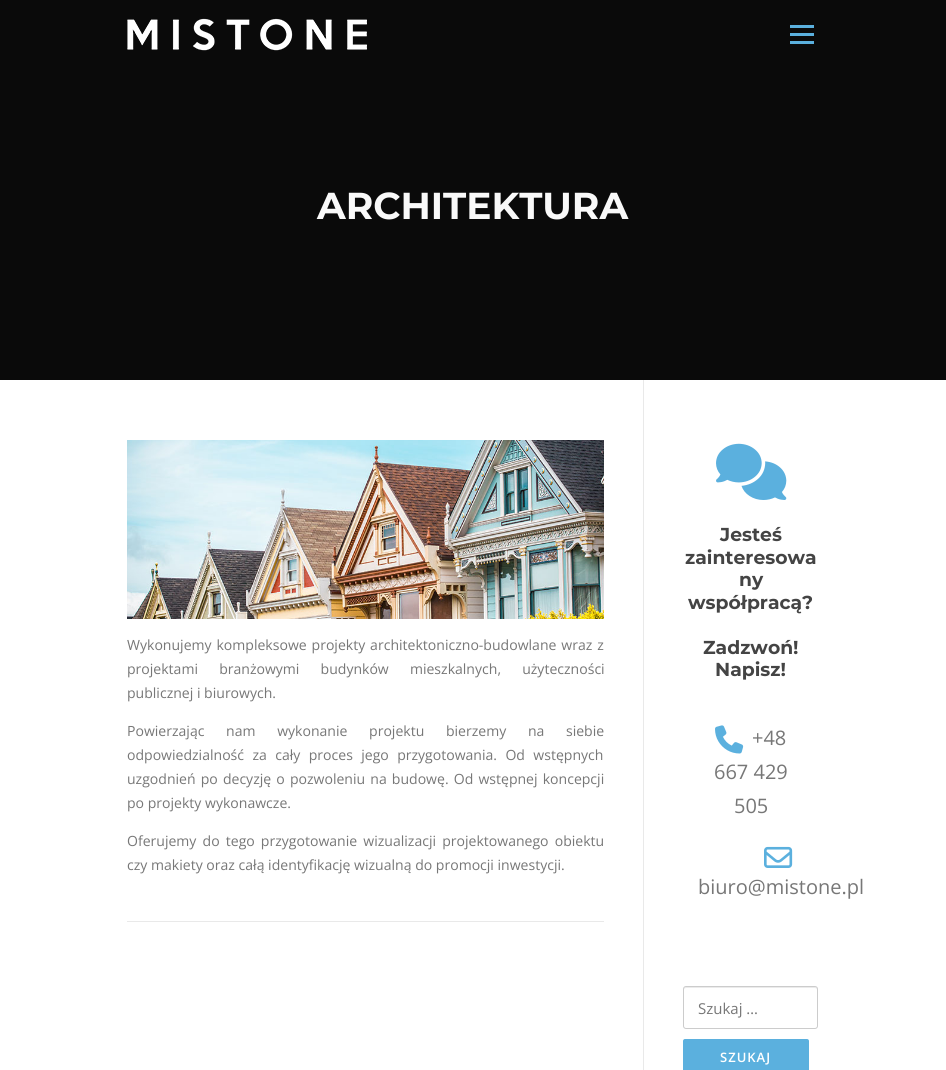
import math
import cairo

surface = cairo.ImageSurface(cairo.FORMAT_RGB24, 946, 1070)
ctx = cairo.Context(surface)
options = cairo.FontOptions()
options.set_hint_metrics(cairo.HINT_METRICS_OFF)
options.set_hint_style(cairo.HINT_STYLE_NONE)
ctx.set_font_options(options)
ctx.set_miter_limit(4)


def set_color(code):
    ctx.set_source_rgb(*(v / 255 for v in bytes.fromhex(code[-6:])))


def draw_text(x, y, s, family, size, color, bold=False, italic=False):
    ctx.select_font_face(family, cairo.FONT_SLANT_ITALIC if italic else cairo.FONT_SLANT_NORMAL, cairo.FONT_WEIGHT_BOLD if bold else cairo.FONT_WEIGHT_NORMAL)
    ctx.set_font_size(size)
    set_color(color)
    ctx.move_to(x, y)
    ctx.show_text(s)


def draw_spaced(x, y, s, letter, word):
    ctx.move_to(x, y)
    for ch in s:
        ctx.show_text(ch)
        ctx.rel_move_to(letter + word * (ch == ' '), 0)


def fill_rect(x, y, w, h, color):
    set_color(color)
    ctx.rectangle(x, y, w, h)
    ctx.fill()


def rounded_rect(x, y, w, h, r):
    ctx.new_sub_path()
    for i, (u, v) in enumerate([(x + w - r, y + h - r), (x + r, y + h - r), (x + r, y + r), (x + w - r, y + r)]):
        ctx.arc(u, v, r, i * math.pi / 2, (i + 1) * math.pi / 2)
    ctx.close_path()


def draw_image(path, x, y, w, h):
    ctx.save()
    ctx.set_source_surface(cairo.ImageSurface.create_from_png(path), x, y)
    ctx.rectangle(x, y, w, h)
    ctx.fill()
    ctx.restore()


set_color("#ffffff")
ctx.paint()
fill_rect(0, 0, 946, 380, "#0a0a0a")
draw_image("assets/img1.png", 127, 18, 240, 33)
fill_rect(790, 33, 24, 3, "#5bb0de")
fill_rect(790, 25, 24, 3, "#5bb0de")
fill_rect(790, 41, 24, 3, "#5bb0de")
draw_text(317, 219, "ARCHITEKTURA", "Montserrat", 37.5, "#f9f9f9", bold=True)
draw_image("assets/img2.png", 127, 440, 477, 179)
ctx.select_font_face("Open Sans")
ctx.set_font_size(14.05)
set_color("#777777")
draw_spaced(127, 650, "Wykonujemy kompleksowe projekty architektoniczno-budowlane wraz z", 0, 1.25)
draw_spaced(127, 674, "projektami branżowymi budynków mieszkalnych, użyteczności", 0, 17.5)
draw_text(127, 698, "publicznej i biurowych.", "Open Sans", 14.05, "#777777")
draw_spaced(127, 736, "Powierzając nam wykonanie projektu bierzemy na siebie", 0, 18)
draw_spaced(127, 760, "odpowiedzialność za cały proces jego przygotowania. Od wstępnych", 0, 4.75)
draw_spaced(127, 784, "uzgodnień po decyzję o pozwoleniu na budowę. Od wstępnej koncepcji", 0, 1.5)
draw_text(127, 808, "po projekty wykonawcze.", "Open Sans", 14.05, "#777777")
draw_spaced(127, 846, "Oferujemy do tego przygotowanie wizualizacji projektowanego obiektu", 0, 2.5)
draw_text(127, 870, "czy makiety oraz całą identyfikację wizualną do promocji inwestycji.", "Open Sans", 14.05, "#777777")
fill_rect(127, 921, 477, 1, "#e9e9e9")
fill_rect(643, 380, 1, 690, "#e9e9e9")
draw_image("assets/img3.png", 716, 443, 71, 57)
draw_text(720, 541, "Jesteś", "Montserrat", 18.75, "#444444", bold=True)
draw_text(685, 564, "zainteresowa", "Montserrat", 18.75, "#444444", bold=True)
draw_text(739, 586, "ny", "Montserrat", 18.75, "#444444", bold=True)
draw_text(688, 609, "współpracą?", "Montserrat", 18.75, "#444444", bold=True)
draw_text(703, 654, "Zadzwoń!", "Montserrat", 18.75, "#444444", bold=True)
draw_text(715, 676, "Napisz!", "Montserrat", 18.75, "#444444", bold=True)
draw_image("assets/img4.png", 715, 725, 29, 29)
draw_text(752, 745, "+48", "Open Sans", 20, "#777777")
draw_text(714, 779, "667 429", "Open Sans", 20, "#777777")
draw_text(734, 813, "505", "Open Sans", 20, "#777777")
draw_image("assets/img5.png", 764, 846, 29, 22)
draw_text(698, 894, "biuro@mistone.pl", "Open Sans", 20, "#777777")
set_color("#ebebeb")
ctx.new_path()
ctx.move_to(686, 988)
ctx.line_to(815, 988)
ctx.curve_to(816, 988, 817, 989, 817, 990)
ctx.curve_to(817, 989, 817, 987, 815, 987)
ctx.line_to(686, 987)
ctx.curve_to(684, 987, 684, 989, 684, 990)
ctx.curve_to(684, 989, 685, 988, 686, 988)
ctx.close_path()
ctx.fill()
rounded_rect(683.5, 986.5, 134, 42, 2.5)
set_color("#cccccc")
ctx.set_line_width(1)
ctx.stroke()
draw_text(698, 1014, "Szukaj …", "Open Sans", 15, "#777777")
set_color("#5bb0de")
rounded_rect(683, 1039, 126, 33, 2)
ctx.fill()
ctx.select_font_face("Open Sans SemiBold")
ctx.set_font_size(13)
set_color("#ffffff")
draw_spaced(720, 1062, "SZUKAJ", 1, 0)
surface.write_to_png("output.png")
